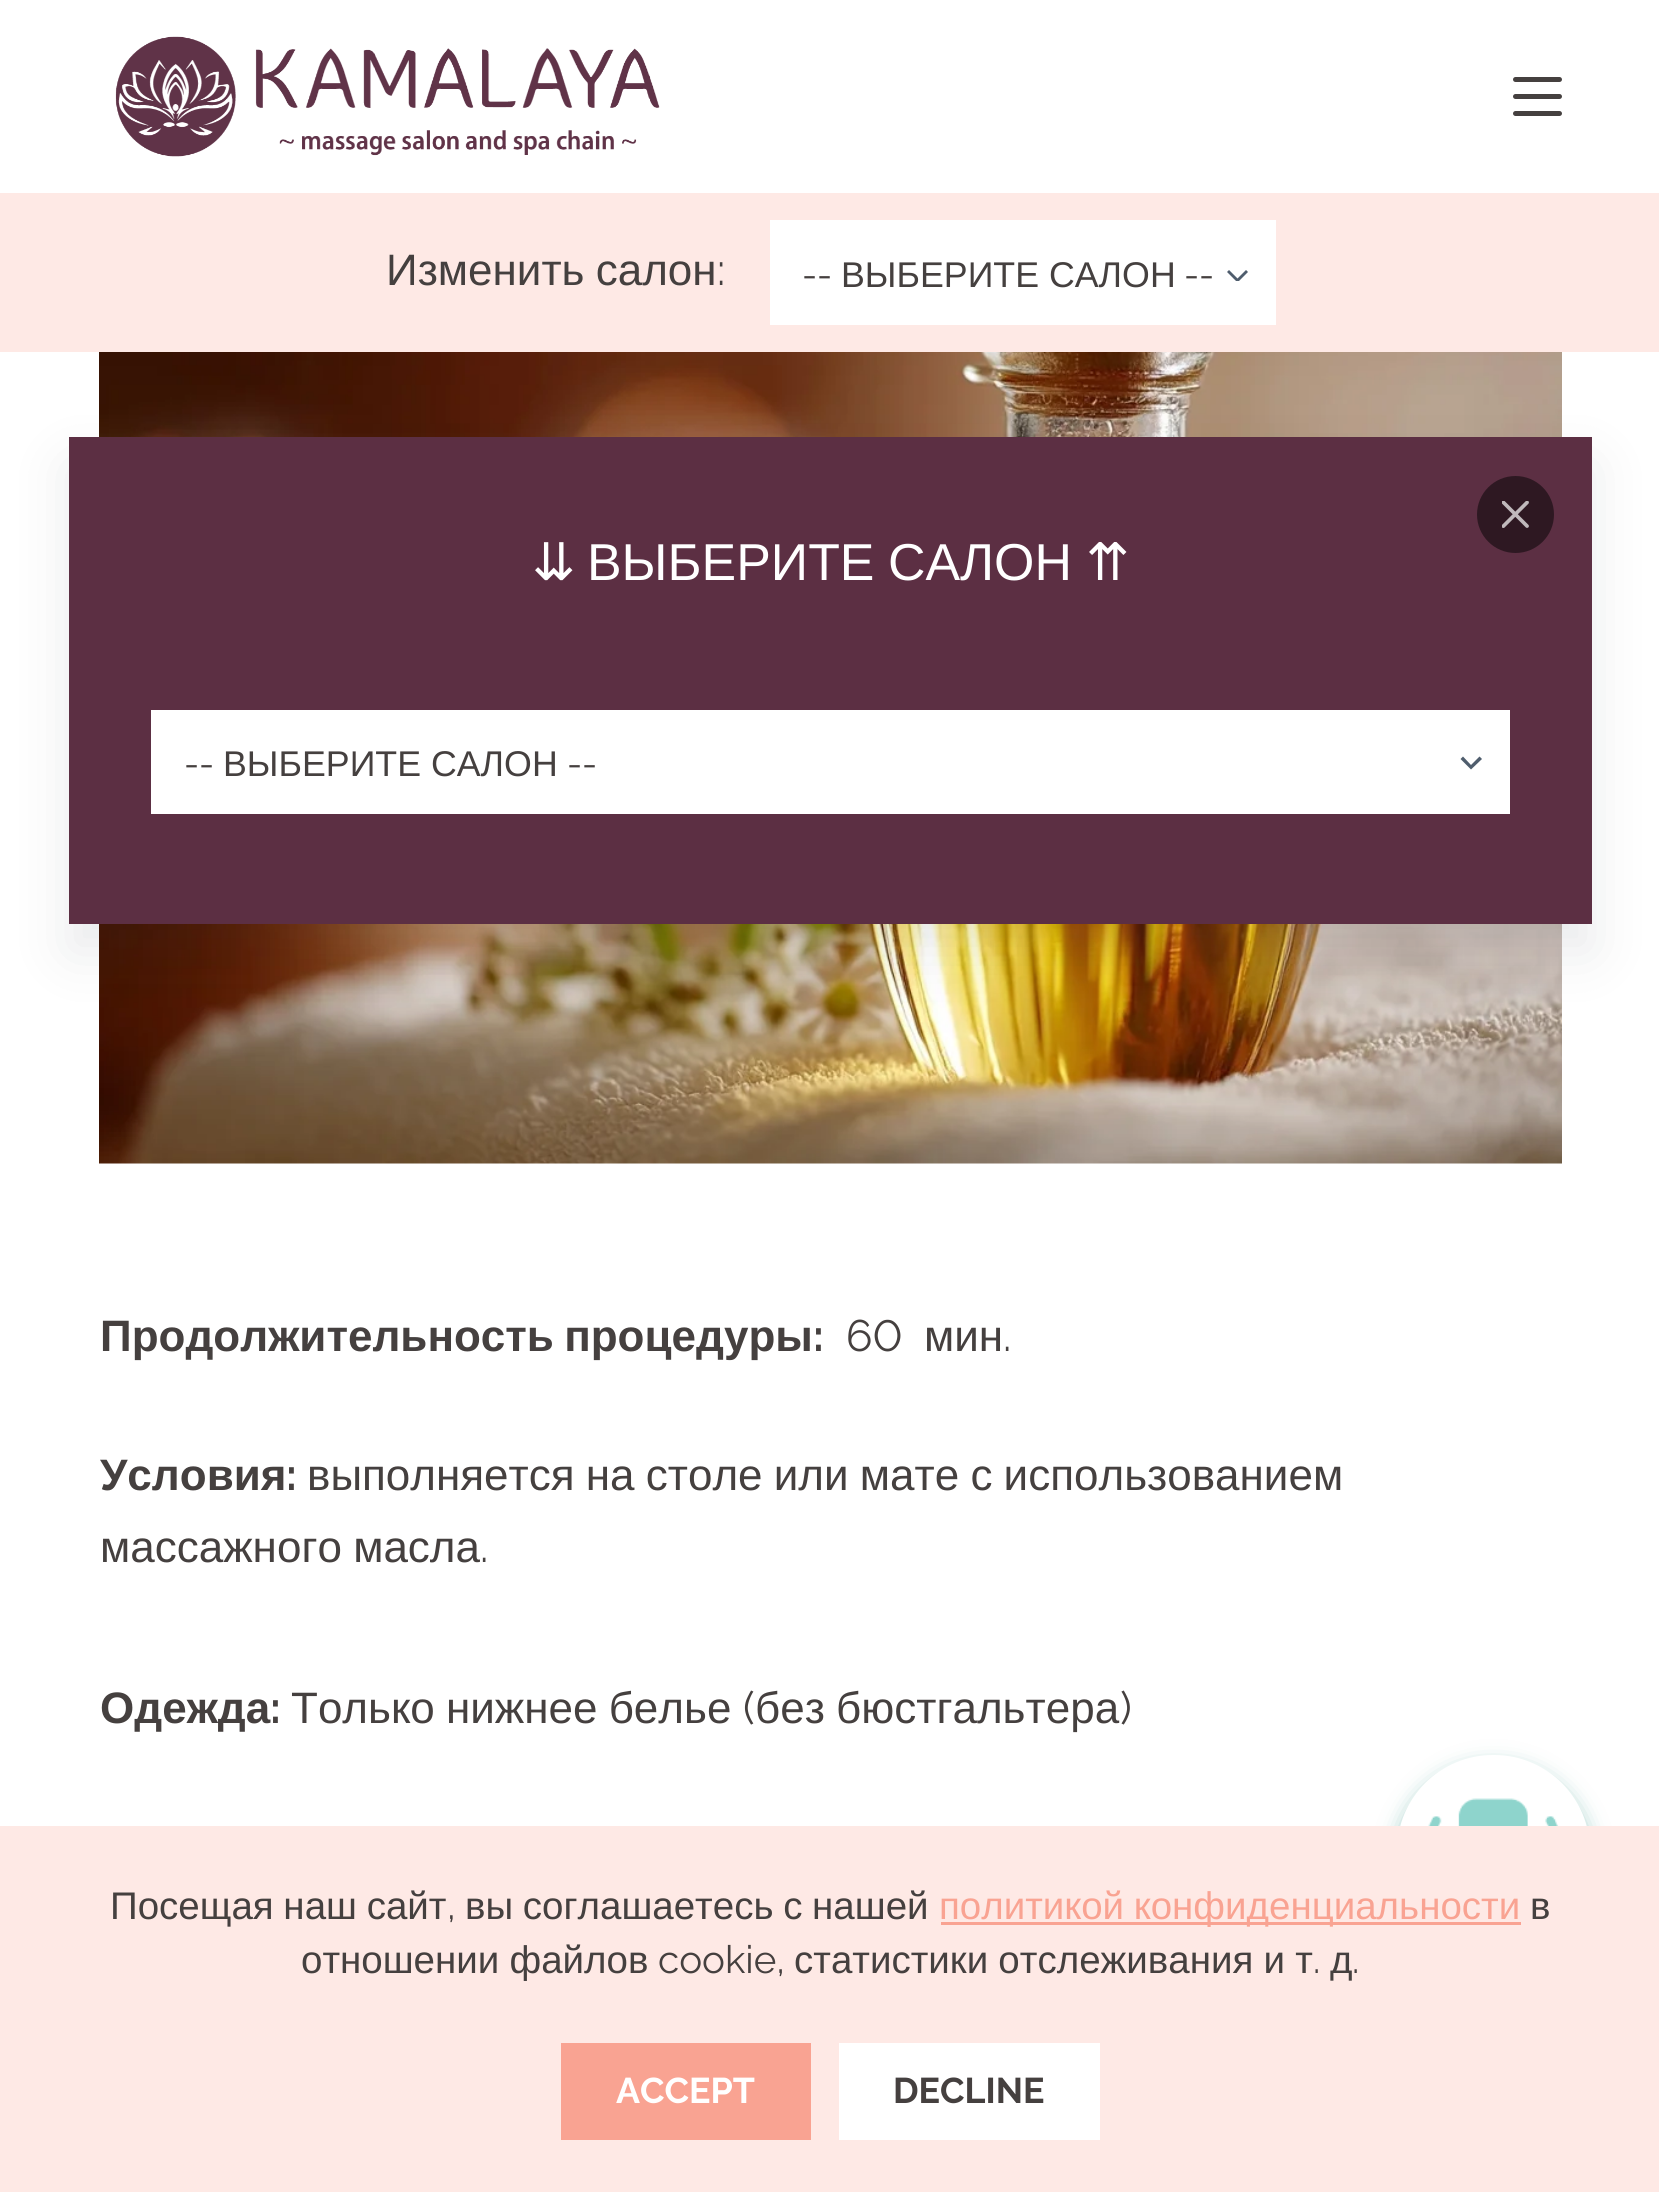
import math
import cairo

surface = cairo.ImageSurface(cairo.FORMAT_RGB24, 1659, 2192)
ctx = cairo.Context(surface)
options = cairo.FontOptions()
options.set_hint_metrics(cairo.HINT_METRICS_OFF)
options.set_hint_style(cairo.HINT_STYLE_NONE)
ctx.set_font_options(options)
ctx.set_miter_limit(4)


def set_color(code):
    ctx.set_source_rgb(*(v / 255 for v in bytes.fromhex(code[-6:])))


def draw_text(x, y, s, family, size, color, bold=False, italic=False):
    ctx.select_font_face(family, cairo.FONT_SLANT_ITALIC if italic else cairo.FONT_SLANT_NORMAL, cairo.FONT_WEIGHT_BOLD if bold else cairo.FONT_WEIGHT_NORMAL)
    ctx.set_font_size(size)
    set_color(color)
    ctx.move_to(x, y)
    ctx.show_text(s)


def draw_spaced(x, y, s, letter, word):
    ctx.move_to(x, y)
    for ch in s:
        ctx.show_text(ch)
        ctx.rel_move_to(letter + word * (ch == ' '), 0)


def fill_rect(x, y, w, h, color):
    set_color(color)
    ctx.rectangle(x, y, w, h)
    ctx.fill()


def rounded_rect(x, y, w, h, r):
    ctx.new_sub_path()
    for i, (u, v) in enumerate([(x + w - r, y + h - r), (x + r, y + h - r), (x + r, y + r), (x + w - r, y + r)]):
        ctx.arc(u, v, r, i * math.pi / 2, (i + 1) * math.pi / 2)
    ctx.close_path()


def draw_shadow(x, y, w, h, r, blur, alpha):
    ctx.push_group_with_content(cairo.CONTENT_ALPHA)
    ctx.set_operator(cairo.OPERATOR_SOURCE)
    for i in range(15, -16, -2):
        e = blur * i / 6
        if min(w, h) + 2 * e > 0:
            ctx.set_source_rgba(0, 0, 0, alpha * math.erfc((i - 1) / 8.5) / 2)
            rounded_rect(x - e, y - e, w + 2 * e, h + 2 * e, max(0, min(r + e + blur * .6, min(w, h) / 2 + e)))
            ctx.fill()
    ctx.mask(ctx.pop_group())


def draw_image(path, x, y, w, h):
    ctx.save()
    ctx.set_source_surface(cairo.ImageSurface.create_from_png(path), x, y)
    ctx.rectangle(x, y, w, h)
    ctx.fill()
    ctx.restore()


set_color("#ffffff")
ctx.paint()
draw_image("assets/img1.png", 115, 36, 545, 121)
set_color("#45403f")
rounded_rect(1513, 77, 49, 5, 2.5)
ctx.fill()
rounded_rect(1513, 94, 49, 5, 2.5)
ctx.fill()
rounded_rect(1513, 111, 49, 5, 2.5)
ctx.fill()
fill_rect(0, 193, 1659, 159, "#fee9e5")
ctx.select_font_face("Liberation Sans")
ctx.set_font_size(44)
set_color("#45403f")
draw_spaced(386, 285, "Изменить салон", 0, -1)
draw_text(717, 285, ":", "Raleway", 44, "#45403f")
fill_rect(770, 220, 506, 105, "#ffffff")
ctx.save()
ctx.rectangle(1227, 270, 22, 11)
ctx.clip()
set_color("#4f5d6d")
ctx.new_path()
ctx.move_to(1246, 270)
ctx.line_to(1248, 272)
ctx.line_to(1237.5, 282.5)
ctx.line_to(1227, 272)
ctx.line_to(1229, 270)
ctx.line_to(1237.5, 278.5)
ctx.close_path()
ctx.fill()
ctx.restore()
draw_text(802, 287, "--", "Raleway", 35.75, "#45403f")
draw_text(841, 287, "ВЫБЕРИТЕ САЛОН", "Liberation Sans", 35.75, "#45403f")
draw_text(1184, 287, "--", "Raleway", 35.75, "#45403f")
draw_image("assets/img2.png", 99, 352, 1463, 812)
ctx.select_font_face("Liberation Sans", cairo.FONT_SLANT_NORMAL, cairo.FONT_WEIGHT_BOLD)
ctx.set_font_size(44)
draw_spaced(100, 1351, "Продолжительность процедуры", 0, -2)
draw_text(813, 1351, ":", "Raleway", 44, "#45403f", bold=True)
draw_text(846, 1351, "60", "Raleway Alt", 44, "#45403f")
draw_text(924, 1351, "мин", "Liberation Sans", 44, "#45403f")
draw_text(1003, 1351, ".", "Raleway", 44, "#45403f")
draw_text(100, 1490, "Условия", "Liberation Sans", 44, "#45403f", bold=True)
draw_text(286, 1490, ":", "Raleway", 44, "#45403f", bold=True)
ctx.select_font_face("Liberation Sans")
draw_spaced(307, 1490, "выполняется на столе или мате с использованием", 0, -1)
draw_spaced(100, 1562, "массажного масла", 0, -1)
draw_text(480, 1562, ".", "Raleway", 44, "#45403f")
draw_text(100, 1723, "Одежда", "Liberation Sans", 44, "#45403f", bold=True)
draw_text(270, 1723, ":", "Raleway", 44, "#45403f", bold=True)
ctx.select_font_face("Liberation Sans")
draw_spaced(291, 1723, "Только нижнее белье", 0, -1)
draw_text(743, 1723, "(", "Raleway", 44, "#45403f")
ctx.select_font_face("Liberation Sans")
draw_spaced(755, 1723, "без бюстгальтера", 0, -1)
draw_text(1120, 1723, ")", "Raleway", 44, "#45403f")
set_color("#29333d")
draw_shadow(69, 465, 1523, 487, 0, 27.5, 0.1)
fill_rect(69, 437, 1523, 487, "#5c2f43")
set_color("#2e1822")
ctx.arc(1515.5, 514.5, 38.5, 0, 2 * math.pi)
ctx.fill()
draw_image("assets/img3.png", 1502, 501, 27, 27)
draw_text(532, 580, "⇊", "DejaVu Sans", 51.9, "#ffffff")
ctx.select_font_face("Liberation Sans")
draw_spaced(587, 580, "ВЫБЕРИТЕ САЛОН", 0, -1)
draw_text(1086, 580, "⇈", "DejaVu Sans", 51.9, "#ffffff")
fill_rect(151, 710, 1359, 104, "#ffffff")
set_color("#4f5d6d")
ctx.new_path()
ctx.move_to(1479.5, 756.5)
ctx.line_to(1482, 759)
ctx.line_to(1471, 769.5)
ctx.line_to(1460.5, 759)
ctx.line_to(1463, 756.5)
ctx.line_to(1471, 765)
ctx.close_path()
ctx.fill()
draw_text(184, 776, "--", "Raleway", 35.75, "#45403f")
draw_text(223, 776, "ВЫБЕРИТЕ САЛОН", "Liberation Sans", 35.75, "#45403f")
draw_text(567, 776, "--", "Raleway", 35.75, "#45403f")
set_color("#80bcb5")
draw_shadow(1397, 1766, 193, 192, 96, 11, 0.8)
set_color("#ffffff")
rounded_rect(1397, 1755, 193, 192, 96)
ctx.fill()
fill_rect(0, 1826, 1659, 366, "#fee9e5")
ctx.select_font_face("Liberation Sans")
ctx.set_font_size(38.5)
set_color("#45403f")
draw_spaced(110, 1919, "Посещая наш сайт", 0, -1)
draw_text(447, 1919, ",", "Raleway", 38.5, "#45403f")
ctx.select_font_face("Liberation Sans")
draw_spaced(465, 1919, "вы соглашаетесь с нашей", 0, -1)
fill_rect(941, 1922, 580, 3, "#f9a392")
draw_spaced(939, 1919, "политикой конфиденциальности", 0, -1)
draw_text(1530, 1919, "в", "Liberation Sans", 38.5, "#45403f")
draw_spaced(301, 1973, "отношении файлов", 0, -0.5)
draw_text(658, 1973, "cookie,", "Raleway", 38.5, "#45403f")
ctx.select_font_face("Liberation Sans")
draw_spaced(794, 1973, "статистики отслеживания и т", 0, -0.5)
draw_text(1313, 1973, ".", "Raleway", 38.5, "#45403f")
draw_text(1330, 1973, "д", "Liberation Sans", 38.5, "#45403f")
draw_text(1352, 1973, ".", "Raleway", 38.5, "#45403f")
fill_rect(561, 2043, 250, 97, "#f9a392")
draw_text(616, 2103, "ACCEPT", "Raleway", 35.75, "#ffffff", bold=True)
fill_rect(839, 2043, 261, 97, "#ffffff")
draw_text(893, 2103, "DECLINE", "Raleway", 35.75, "#45403f", bold=True)
draw_image("assets/img4.png", 1428, 1798, 131, 28)
surface.write_to_png("output.png")
